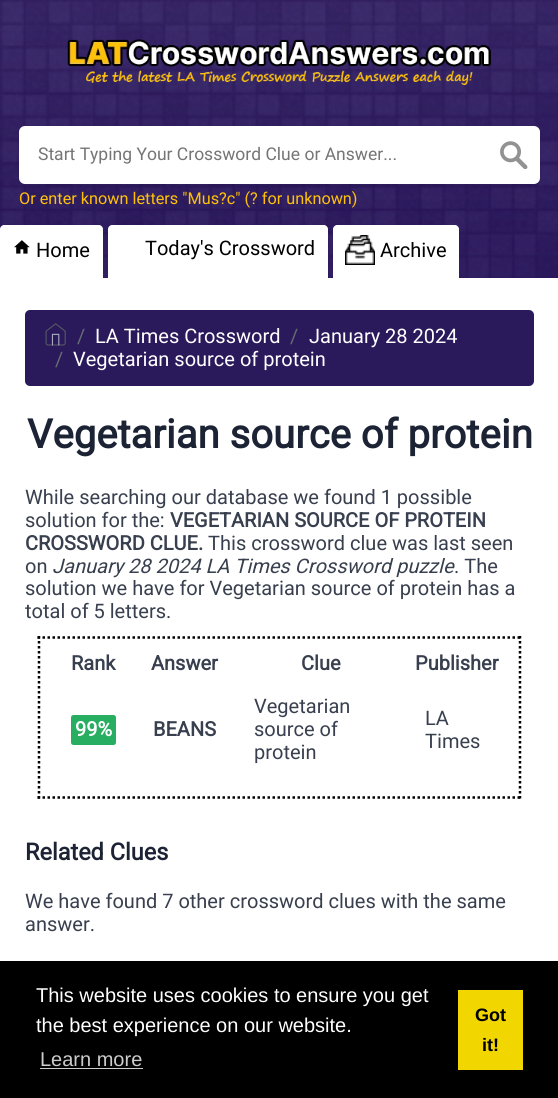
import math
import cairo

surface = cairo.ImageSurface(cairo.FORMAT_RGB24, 558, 1098)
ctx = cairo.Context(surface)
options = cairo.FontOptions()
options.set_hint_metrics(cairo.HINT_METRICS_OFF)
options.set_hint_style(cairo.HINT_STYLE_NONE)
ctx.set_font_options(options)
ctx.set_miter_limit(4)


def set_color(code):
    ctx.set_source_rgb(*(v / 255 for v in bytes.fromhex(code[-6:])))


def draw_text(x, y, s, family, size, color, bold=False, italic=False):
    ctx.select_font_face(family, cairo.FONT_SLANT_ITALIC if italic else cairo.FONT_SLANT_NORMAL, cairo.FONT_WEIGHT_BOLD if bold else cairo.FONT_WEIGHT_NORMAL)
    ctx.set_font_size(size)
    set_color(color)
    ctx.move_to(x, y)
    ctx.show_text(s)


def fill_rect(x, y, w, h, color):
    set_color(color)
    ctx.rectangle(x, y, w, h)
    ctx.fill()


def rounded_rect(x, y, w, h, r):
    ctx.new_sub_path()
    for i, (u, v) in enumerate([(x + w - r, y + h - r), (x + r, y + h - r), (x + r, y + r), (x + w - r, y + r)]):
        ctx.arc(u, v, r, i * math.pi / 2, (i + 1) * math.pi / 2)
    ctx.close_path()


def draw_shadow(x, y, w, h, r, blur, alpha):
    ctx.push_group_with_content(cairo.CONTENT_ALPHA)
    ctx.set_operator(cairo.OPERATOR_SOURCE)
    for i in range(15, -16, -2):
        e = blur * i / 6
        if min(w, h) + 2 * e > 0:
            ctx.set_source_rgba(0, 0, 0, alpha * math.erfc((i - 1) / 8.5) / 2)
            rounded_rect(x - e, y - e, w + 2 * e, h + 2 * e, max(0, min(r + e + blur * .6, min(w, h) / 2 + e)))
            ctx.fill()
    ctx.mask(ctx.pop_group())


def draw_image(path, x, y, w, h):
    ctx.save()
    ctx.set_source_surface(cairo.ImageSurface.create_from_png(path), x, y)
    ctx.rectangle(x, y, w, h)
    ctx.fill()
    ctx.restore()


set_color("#ffffff")
ctx.paint()
draw_image("assets/img1.png", 0, 0, 558, 278)
draw_image("assets/img2.png", 67, 39, 424, 46)
set_color("#000000")
draw_shadow(19, 128, 521, 57, 6, 2.5, 0.1)
set_color("#ffffff")
rounded_rect(19, 126, 521, 58, 6)
ctx.fill()
draw_text(38, 160, "Start Typing Your Crossword Clue or Answer...", "Heebo", 17.5, "#757575")
draw_image("assets/img3.png", 500, 141, 28, 28)
draw_text(19, 204, "Or enter known letters \"Mus?c\" (? for unknown)", "Heebo", 16.25, "#ffc107")
set_color("#ffffff")
ctx.new_path()
ctx.move_to(4, 225)
ctx.line_to(99, 225)
ctx.curve_to(101, 225, 103, 227, 103, 229)
ctx.line_to(103, 278)
ctx.line_to(0, 278)
ctx.line_to(0, 229)
ctx.curve_to(0, 227, 2, 225, 4, 225)
ctx.close_path()
ctx.fill()
draw_image("assets/img4.png", 14, 240, 16, 14)
draw_text(36, 257, "Home", "Heebo", 20, "#000000")
set_color("#ffffff")
ctx.new_path()
ctx.move_to(112, 225)
ctx.line_to(324, 225)
ctx.curve_to(326, 225, 328, 227, 328, 229)
ctx.line_to(328, 278)
ctx.line_to(108, 278)
ctx.line_to(108, 229)
ctx.curve_to(108, 227, 110, 225, 112, 225)
ctx.close_path()
ctx.fill()
draw_text(145, 255, "Today's Crossword", "Heebo", 20, "#000000")
set_color("#ffffff")
ctx.new_path()
ctx.move_to(337, 225)
ctx.line_to(455, 225)
ctx.curve_to(457, 225, 459, 227, 459, 229)
ctx.line_to(459, 278)
ctx.line_to(333, 278)
ctx.line_to(333, 229)
ctx.curve_to(333, 227, 335, 225, 337, 225)
ctx.close_path()
ctx.fill()
draw_image("assets/img5.png", 345, 235, 30, 30)
draw_text(380, 257, "Archive", "Heebo", 20, "#000000")
set_color("#2a195b")
rounded_rect(25, 310, 509, 76, 5)
ctx.fill()
draw_image("assets/img6.png", 45, 323, 21, 23)
draw_text(77, 343, "/", "Heebo", 20, "#636c72")
draw_text(95, 343, "LA Times Crossword", "Heebo", 20, "#ffffff")
draw_text(290, 343, "/", "Heebo", 20, "#636c72")
draw_text(309, 343, "January 28 2024", "Heebo", 20, "#ffffff")
draw_text(55, 366, "/", "Heebo", 20, "#636c72")
draw_text(73, 366, "Vegetarian source of protein", "Heebo", 20, "#ffffff")
draw_text(27, 448, "Vegetarian source of protein", "Heebo", 40, "#1c2334", bold=True)
draw_text(25, 504, "While searching our database we found 1 possible", "Heebo", 20, "#383f4e")
draw_text(25, 527, "solution for the:", "Heebo", 20, "#383f4e")
draw_text(170, 527, "VEGETARIAN SOURCE OF PROTEIN", "Heebo", 20, "#383f4e", bold=True)
draw_text(25, 550, "CROSSWORD CLUE.", "Heebo", 20, "#383f4e", bold=True)
draw_text(208, 550, "This crossword clue was last seen", "Heebo", 20, "#383f4e")
draw_text(25, 573, "on", "Heebo", 20, "#383f4e")
draw_text(52, 573, "January 28 2024 LA Times Crossword puzzle", "Heebo", 20, "#383f4e", italic=True)
draw_text(454, 573, ". The", "Heebo", 20, "#383f4e")
draw_text(25, 595, "solution we have for Vegetarian source of protein has a", "Heebo", 20, "#383f4e")
draw_text(25, 618, "total of 5 letters.", "Heebo", 20, "#383f4e")
ctx.new_path()
ctx.move_to(37.5, 637.5)
ctx.line_to(521, 637.5)
set_color("#000000")
ctx.set_line_width(2.5)
ctx.set_dash([2.5, 2.5])
ctx.stroke()
ctx.new_path()
ctx.move_to(520, 636)
ctx.line_to(520, 799)
ctx.stroke()
ctx.new_path()
ctx.move_to(37.5, 797.5)
ctx.line_to(521, 797.5)
ctx.stroke()
ctx.new_path()
ctx.move_to(39, 636)
ctx.line_to(39, 799)
ctx.stroke()
draw_text(71, 670, "Rank", "Heebo", 20, "#383f4e", bold=True)
draw_text(151, 670, "Answer", "Heebo", 20, "#383f4e", bold=True)
draw_text(301, 670, "Clue", "Heebo", 20, "#383f4e", bold=True)
draw_text(415, 670, "Publisher", "Heebo", 20, "#383f4e", bold=True)
set_color("#27ae60")
rounded_rect(71, 715, 45, 30, 2.5)
ctx.fill()
draw_text(75, 736, "99%", "Heebo", 20, "#ffffff", bold=True)
draw_text(153, 736, "BEANS", "Heebo", 20, "#383f4e", bold=True)
draw_text(254, 713, "Vegetarian", "Heebo", 20, "#383f4e")
draw_text(254, 736, "source of", "Heebo", 20, "#383f4e")
draw_text(254, 759, "protein", "Heebo", 20, "#383f4e")
draw_text(425, 725, "LA", "Heebo", 20, "#383f4e")
draw_text(425, 748, "Times", "Heebo", 20, "#383f4e")
draw_text(25, 860, "Related Clues", "Heebo", 23.5, "#1c2334", bold=True)
draw_text(25, 908, "We have found 7 other crossword clues with the same", "Heebo", 20, "#383f4e")
draw_text(25, 931, "answer.", "Heebo", 20, "#383f4e")
fill_rect(0, 961, 558, 137, "#000000")
draw_text(36, 1002, "This website uses cookies to ensure you get", "Liberation Sans", 20, "#ffffff")
draw_text(36, 1032, "the best experience on our website.", "Liberation Sans", 20, "#ffffff")
draw_text(40, 1066, "Learn more", "Liberation Sans", 20, "#cccccc")
fill_rect(40, 1068, 103, 1, "#cccccc")
fill_rect(458, 990, 65, 80, "#f1d600")
draw_text(475, 1021, "Got", "Liberation Sans", 18, "#000000", bold=True)
draw_text(482, 1051, "it!", "Liberation Sans", 18, "#000000", bold=True)
surface.write_to_png("output.png")
